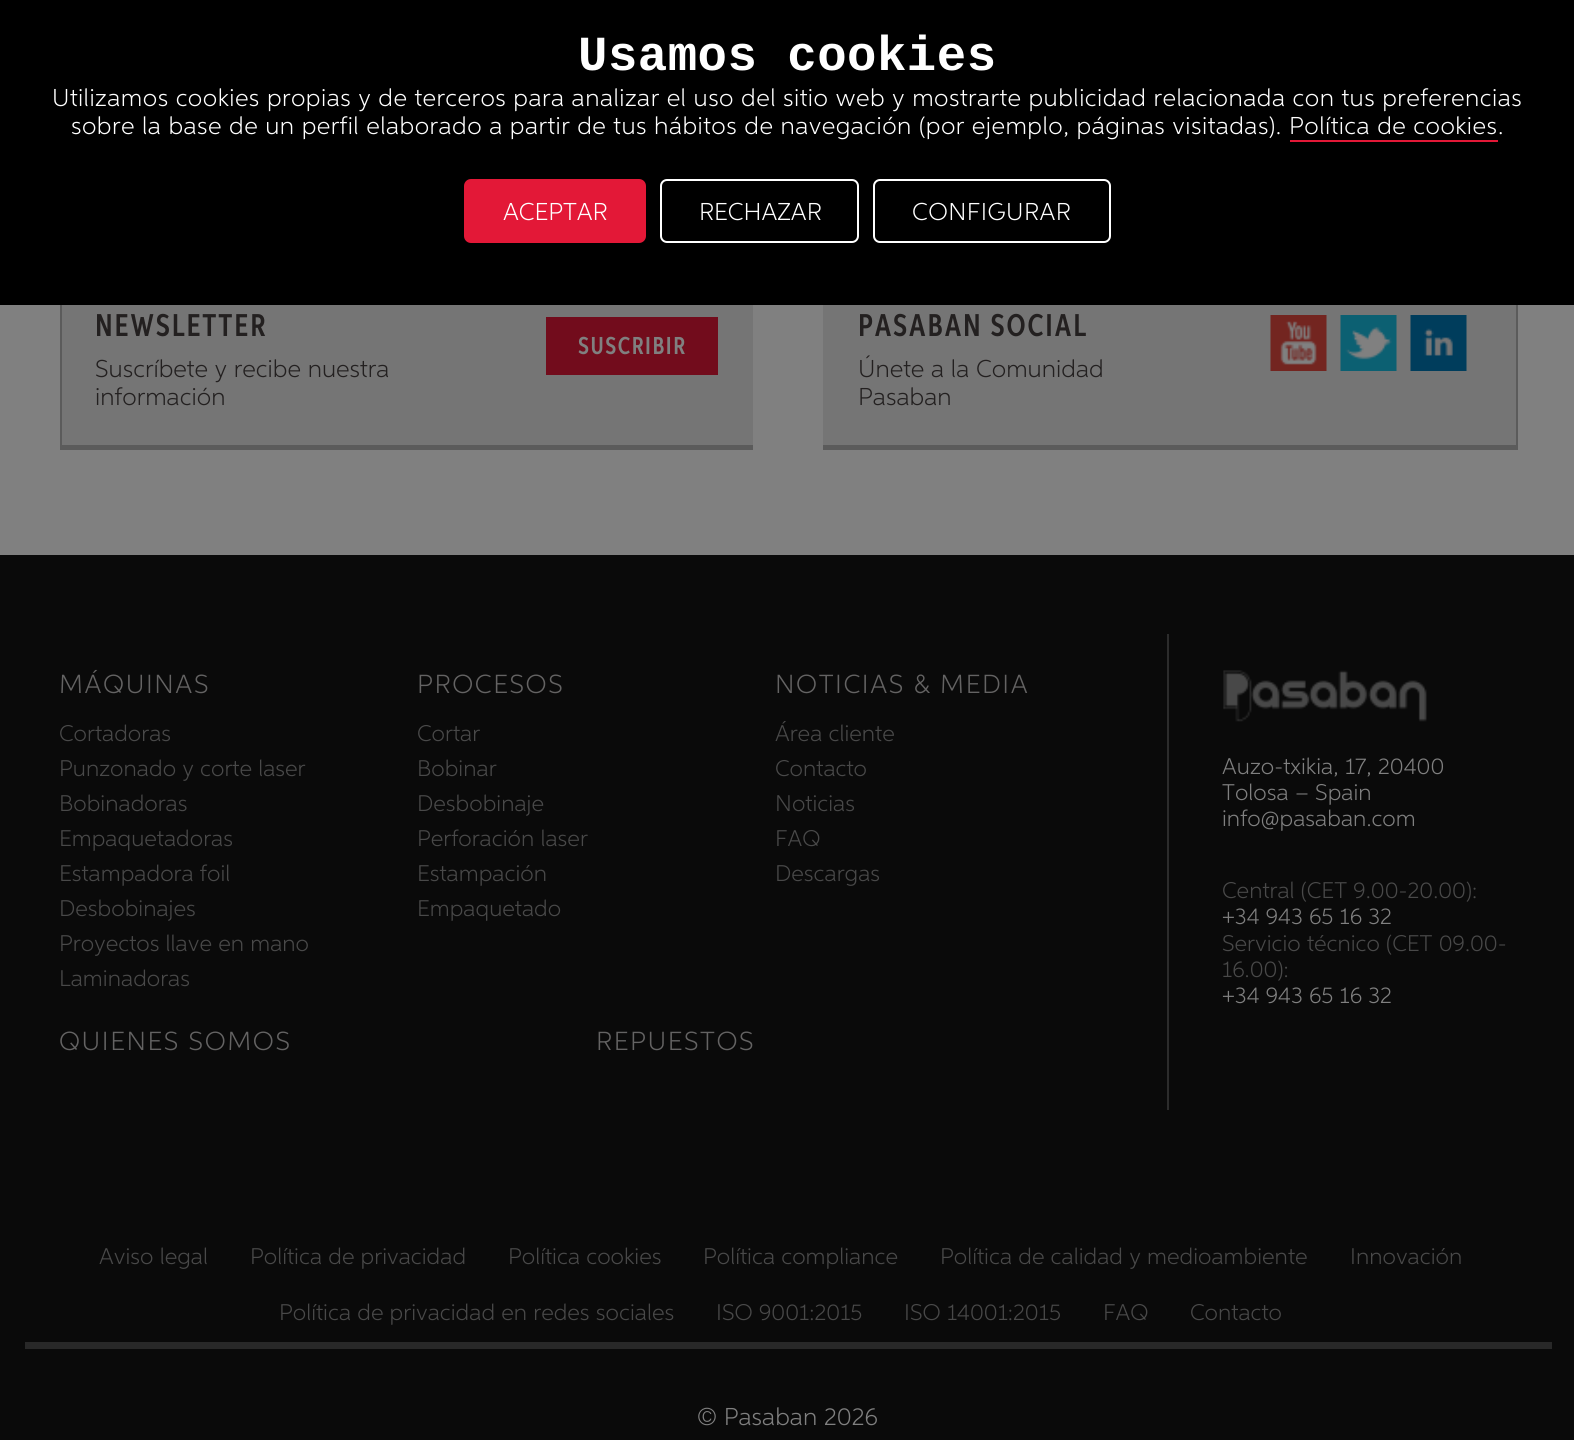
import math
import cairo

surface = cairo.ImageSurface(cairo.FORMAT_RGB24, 1574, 1440)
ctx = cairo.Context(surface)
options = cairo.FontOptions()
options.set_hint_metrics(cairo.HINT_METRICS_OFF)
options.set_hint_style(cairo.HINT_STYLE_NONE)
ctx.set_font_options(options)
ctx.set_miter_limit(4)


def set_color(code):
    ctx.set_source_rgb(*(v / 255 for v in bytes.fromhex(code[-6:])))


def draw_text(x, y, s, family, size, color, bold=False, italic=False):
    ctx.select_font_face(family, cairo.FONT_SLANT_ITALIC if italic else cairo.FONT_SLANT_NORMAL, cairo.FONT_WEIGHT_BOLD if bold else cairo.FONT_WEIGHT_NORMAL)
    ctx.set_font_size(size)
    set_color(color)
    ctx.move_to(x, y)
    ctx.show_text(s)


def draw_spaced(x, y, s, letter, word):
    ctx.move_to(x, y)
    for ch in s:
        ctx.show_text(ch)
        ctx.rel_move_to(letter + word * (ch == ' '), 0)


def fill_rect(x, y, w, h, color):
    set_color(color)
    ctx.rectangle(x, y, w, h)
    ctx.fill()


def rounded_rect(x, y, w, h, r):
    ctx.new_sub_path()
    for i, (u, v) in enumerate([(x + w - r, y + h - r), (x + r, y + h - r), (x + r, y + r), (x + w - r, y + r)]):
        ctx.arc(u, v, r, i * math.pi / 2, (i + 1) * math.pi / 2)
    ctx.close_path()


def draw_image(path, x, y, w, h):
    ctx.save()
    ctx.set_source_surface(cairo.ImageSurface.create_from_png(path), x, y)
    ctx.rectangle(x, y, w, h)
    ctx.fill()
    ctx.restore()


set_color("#808080")
ctx.paint()
fill_rect(0, 0, 1574, 305, "#000000")
ctx.select_font_face("Liberation Mono", cairo.FONT_SLANT_NORMAL, cairo.FONT_WEIGHT_BOLD)
ctx.set_font_size(49)
set_color("#ffffff")
draw_spaced(578, 70, "Usamos cookies", 0.49, 0)
ctx.select_font_face("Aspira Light")
ctx.set_font_size(24.5)
draw_spaced(52, 106, "Utilizamos cookies propias y de terceros para analizar el uso del sitio web y mostrarte publicidad relacionada con tus preferencias", 0.49, 0)
draw_spaced(71, 134, "sobre la base de un perfil elaborado a partir de tus hábitos de navegación (por ejemplo, páginas visitadas).", 0.49, 0)
fill_rect(1290, 140, 208, 2, "#e31837")
set_color("#ffffff")
draw_spaced(1289, 134, "Política de cookies", 0.49, 0)
draw_spaced(1498, 134, ".", 0.49, 0)
set_color("#e31837")
rounded_rect(464, 179, 182, 64, 7)
ctx.fill()
draw_text(503, 220, "ACEPTAR", "Aspira Light", 24.5, "#ffffff")
rounded_rect(661, 180, 197, 62, 6)
ctx.stroke()
draw_text(699, 220, "RECHAZAR", "Aspira Light", 24.5, "#ffffff")
rounded_rect(874, 180, 236, 62, 6)
ctx.stroke()
draw_spaced(912, 220, "CONFIGURAR", 0.49, 0)
fill_rect(62, 305, 691, 140, "#757575")
fill_rect(60, 445, 693, 5, "#5b5b5b")
fill_rect(60, 305, 2, 145, "#5b5b5b")
ctx.select_font_face("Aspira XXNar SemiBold")
ctx.set_font_size(31.5)
set_color("#232020")
draw_spaced(95, 336, "NEWSLETTER", 1.9, 0)
ctx.select_font_face("Aspira Light")
ctx.set_font_size(24.5)
draw_spaced(95, 377, "Suscríbete y recibe nuestra", 0.05, 0)
draw_spaced(95, 405, "información", 0.05, 0)
fill_rect(546, 317, 172, 58, "#720c1c")
ctx.select_font_face("Aspira XXNar SemiBold")
set_color("#808080")
draw_spaced(578, 354, "SUSCRIBIR", 1.5, 0)
fill_rect(823, 305, 693, 140, "#757575")
fill_rect(1516, 305, 2, 145, "#5b5b5b")
fill_rect(823, 445, 694, 5, "#5b5b5b")
ctx.set_font_size(31.5)
set_color("#232020")
draw_spaced(858, 336, "PASABAN SOCIAL", 1.9, 0)
ctx.select_font_face("Aspira Light")
ctx.set_font_size(24.5)
draw_spaced(858, 377, "Únete a la Comunidad", 0.05, 0)
draw_spaced(858, 405, "Pasaban", 0.05, 0)
draw_image("assets/img1.png", 1270, 315, 57, 56)
draw_image("assets/img2.png", 1340, 315, 57, 56)
draw_image("assets/img3.png", 1410, 315, 57, 56)
fill_rect(0, 555, 1574, 885, "#0a0a0a")
fill_rect(1167, 634, 2, 476, "#2c2c2c")
ctx.set_font_size(26.25)
set_color("#646363")
draw_spaced(59, 693, "MÁQUINAS", 1.6, 0)
ctx.set_font_size(22.75)
set_color("#494949")
draw_spaced(59, 741, "Cortadoras", 0.05, 0)
draw_spaced(59, 776, "Punzonado y corte laser", 0.05, 0)
draw_spaced(59, 811, "Bobinadoras", 0.05, 0)
draw_spaced(59, 846, "Empaquetadoras", 0.05, 0)
draw_spaced(59, 881, "Estampadora foil", 0.05, 0)
draw_spaced(59, 916, "Desbobinajes", 0.05, 0)
draw_spaced(59, 951, "Proyectos llave en mano", 0.05, 0)
draw_spaced(59, 986, "Laminadoras", 0.05, 0)
ctx.set_font_size(26.25)
set_color("#646363")
draw_spaced(417, 693, "PROCESOS", 1.6, 0)
ctx.set_font_size(22.75)
set_color("#494949")
draw_spaced(417, 741, "Cortar", 0.05, 0)
draw_spaced(417, 776, "Bobinar", 0.05, 0)
draw_spaced(417, 811, "Desbobinaje", 0.05, 0)
draw_spaced(417, 846, "Perforación laser", 0.05, 0)
draw_spaced(417, 881, "Estampación", 0.05, 0)
draw_spaced(417, 916, "Empaquetado", 0.05, 0)
ctx.set_font_size(26.25)
set_color("#646363")
draw_spaced(775, 693, "NOTICIAS & MEDIA", 1.6, 0)
ctx.set_font_size(22.75)
set_color("#494949")
draw_spaced(775, 741, "Área cliente", 0.05, 0)
draw_spaced(775, 776, "Contacto", 0.05, 0)
draw_spaced(775, 811, "Noticias", 0.05, 0)
draw_spaced(775, 846, "FAQ", 0.05, 0)
draw_spaced(775, 881, "Descargas", 0.05, 0)
ctx.set_font_size(26.25)
set_color("#646363")
draw_spaced(59, 1050, "QUIENES SOMOS", 1.6, 0)
draw_spaced(596, 1050, "REPUESTOS", 1.6, 0)
draw_image("assets/img4.png", 1223, 670, 204, 52)
ctx.set_font_size(22.75)
set_color("#808080")
draw_spaced(1222, 774, "Auzo-txikia, 17, 20400", 0.05, 0)
draw_spaced(1222, 800, "Tolosa – Spain", 0.05, 0)
draw_spaced(1222, 826, "info@pasaban.com", 0.05, 0)
set_color("#494949")
draw_spaced(1222, 898, "Central (CET 9.00-20.00):", 0.05, 0)
set_color("#808080")
draw_spaced(1222, 924, "+34 943 65 16 32", 0.05, 0)
set_color("#494949")
draw_spaced(1222, 951, "Servicio técnico (CET 09.00-", 0.05, 0)
draw_spaced(1222, 977, "16.00):", 0.05, 0)
set_color("#808080")
draw_spaced(1222, 1003, "+34 943 65 16 32", 0.05, 0)
fill_rect(25, 1342, 1527, 7, "#282828")
set_color("#494949")
draw_spaced(99, 1264, "Aviso legal", 0.05, 0)
draw_spaced(250, 1264, "Política de privacidad", 0.05, 0)
draw_spaced(508, 1264, "Política cookies", 0.05, 0)
draw_spaced(703, 1264, "Política compliance", 0.05, 0)
draw_spaced(940, 1264, "Política de calidad y medioambiente", 0.05, 0)
draw_spaced(1350, 1264, "Innovación", 0.05, 0)
draw_spaced(279, 1320, "Política de privacidad en redes sociales", 0.05, 0)
draw_spaced(716, 1320, "ISO 9001:2015", 0.05, 0)
draw_spaced(904, 1320, "ISO 14001:2015", 0.05, 0)
draw_spaced(1103, 1320, "FAQ", 0.05, 0)
draw_spaced(1190, 1320, "Contacto", 0.05, 0)
ctx.set_font_size(24.5)
set_color("#808080")
draw_spaced(697, 1425, "© Pasaban 2026", 0.05, 0)
surface.write_to_png("output.png")
